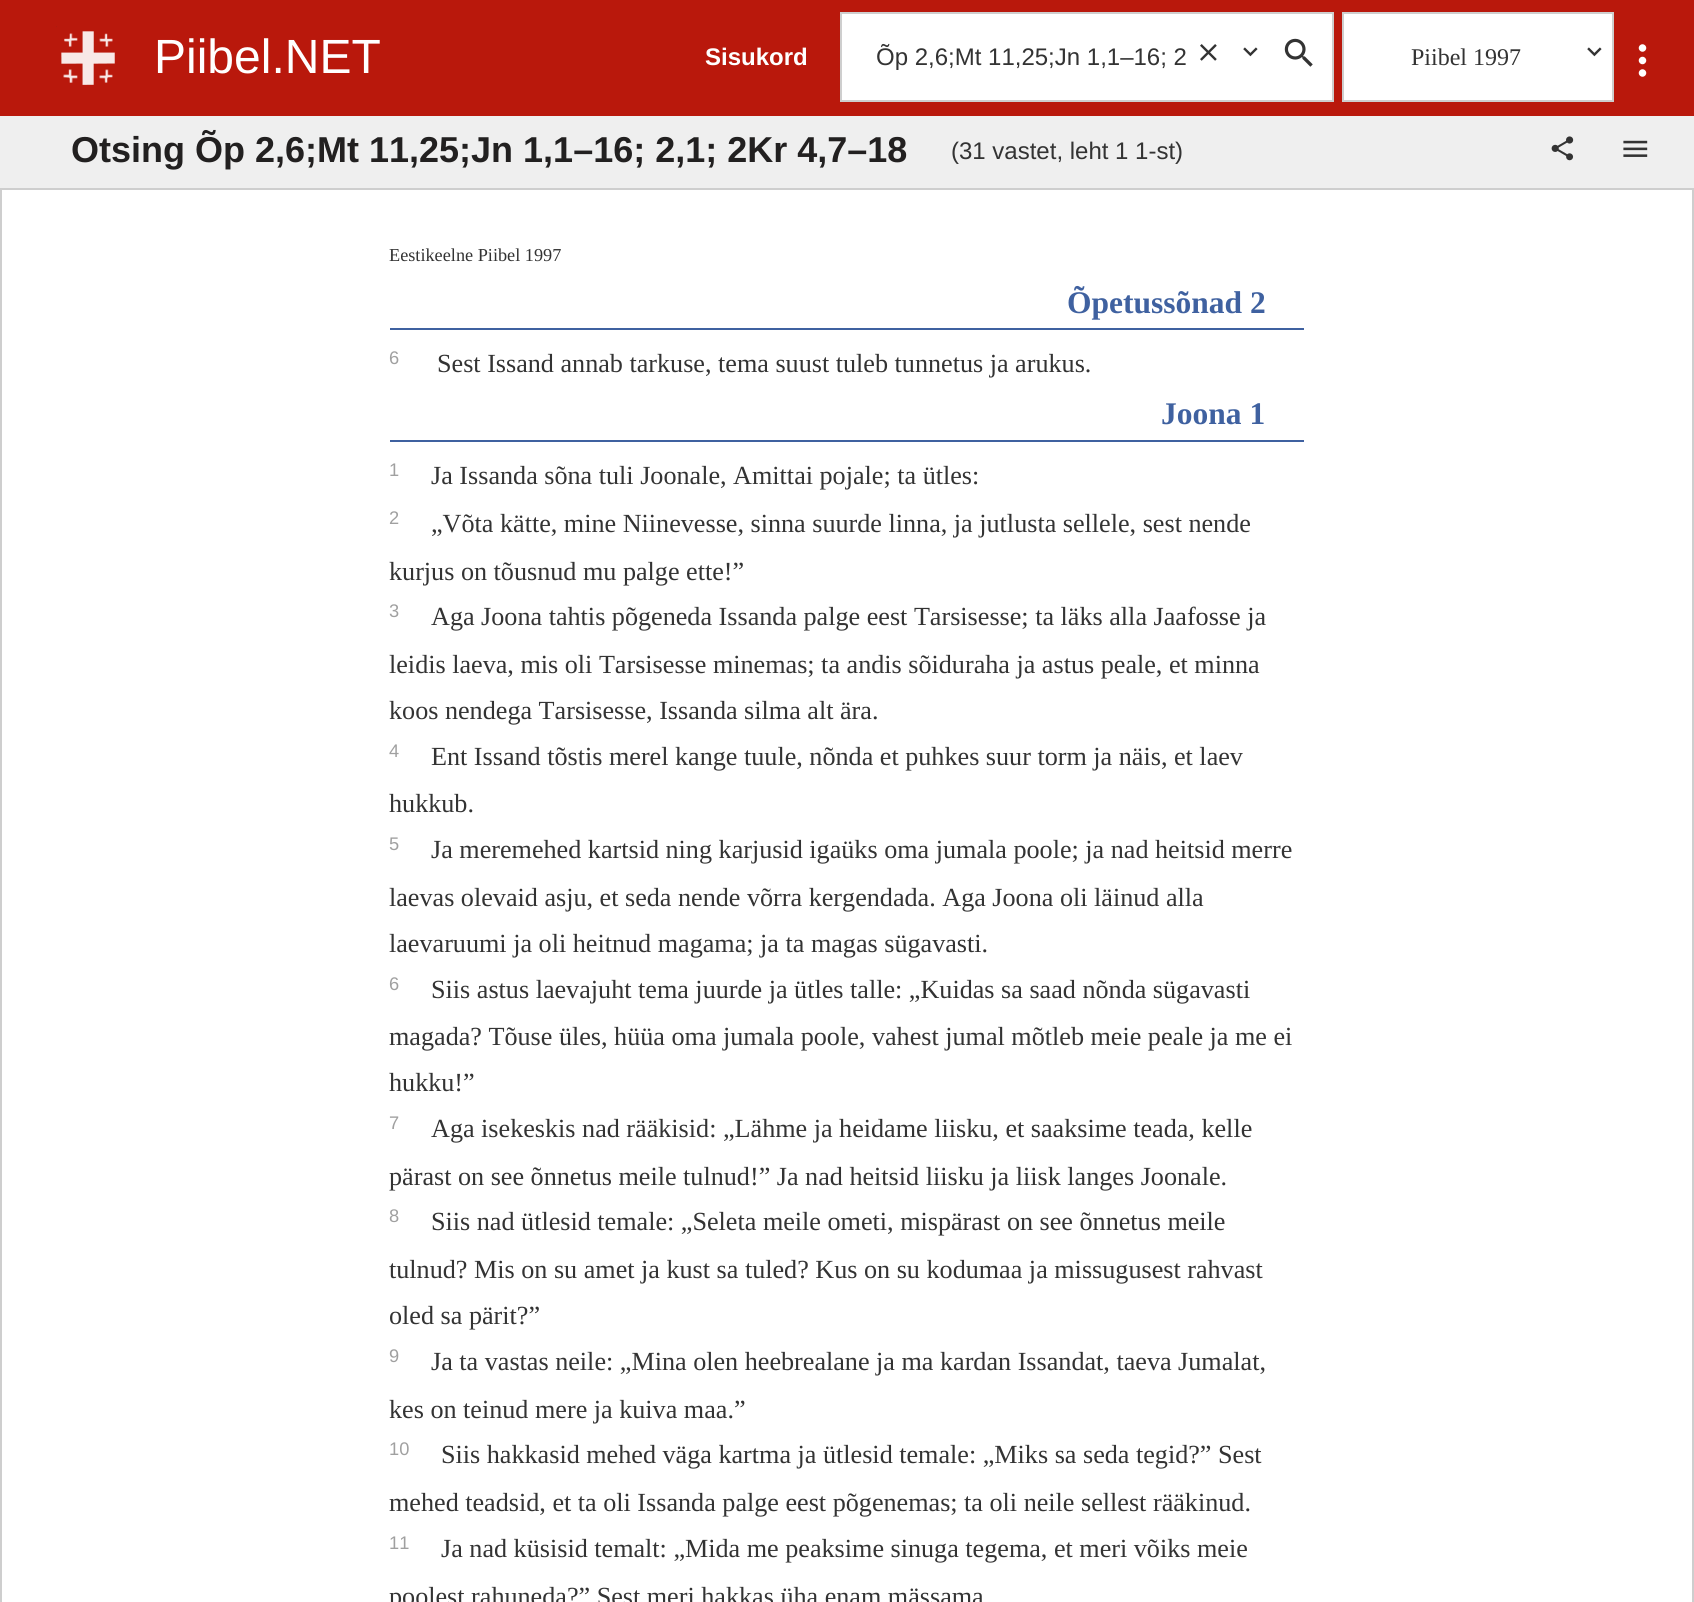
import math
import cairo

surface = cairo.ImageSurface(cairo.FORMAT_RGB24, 1694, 1602)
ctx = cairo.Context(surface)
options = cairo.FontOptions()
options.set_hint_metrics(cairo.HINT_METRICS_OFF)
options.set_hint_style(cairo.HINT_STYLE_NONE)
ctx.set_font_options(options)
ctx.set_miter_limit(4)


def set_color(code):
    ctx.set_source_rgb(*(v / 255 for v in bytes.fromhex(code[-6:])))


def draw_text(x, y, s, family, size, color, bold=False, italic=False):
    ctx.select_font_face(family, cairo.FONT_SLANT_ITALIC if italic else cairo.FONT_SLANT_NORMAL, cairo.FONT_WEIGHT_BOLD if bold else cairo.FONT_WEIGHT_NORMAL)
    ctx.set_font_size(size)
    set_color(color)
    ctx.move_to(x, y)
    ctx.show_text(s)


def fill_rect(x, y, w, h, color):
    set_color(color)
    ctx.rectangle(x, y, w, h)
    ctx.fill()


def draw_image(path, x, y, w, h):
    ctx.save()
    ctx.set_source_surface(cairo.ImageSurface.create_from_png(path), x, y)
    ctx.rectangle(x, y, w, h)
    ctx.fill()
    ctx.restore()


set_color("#ffffff")
ctx.paint()
fill_rect(0, 0, 1694, 116, "#b9180c")
draw_image("assets/img1.png", 56, 26, 59, 59)
draw_text(154, 73, "Piibel.NET", "Liberation Sans", 48, "#ffffff")
draw_text(705, 65, "Sisukord", "Liberation Sans", 24, "#ffffff", bold=True)
ctx.rectangle(841, 13, 492, 88)
ctx.fill_preserve()
set_color("#cecece")
ctx.stroke()
draw_text(876, 65, "Õp 2,6;Mt 11,25;Jn 1,1–16; 2", "Liberation Sans", 24, "#333333")
draw_image("assets/img2.png", 1200, 44, 17, 17)
draw_image("assets/img3.png", 1243, 47, 15, 10)
draw_image("assets/img4.png", 1284, 38, 29, 29)
set_color("#ffffff")
ctx.rectangle(1343, 13, 270, 88)
ctx.fill_preserve()
set_color("#cecece")
ctx.stroke()
draw_text(1411, 65, "Piibel 1997", "Liberation Serif", 24, "#333333")
draw_image("assets/img3.png", 1587, 47, 15, 10)
draw_image("assets/img5.png", 1638, 44, 9, 33)
fill_rect(0, 116, 1694, 72, "#efefef")
fill_rect(0, 188, 1694, 2, "#cecece")
draw_text(71, 162, "Otsing Õp 2,6;Mt 11,25;Jn 1,1–16; 2,1; 2Kr 4,7–18", "Liberation Sans", 36, "#222020", bold=True)
draw_text(951, 159, "(31 vastet, leht 1 1-st)", "Liberation Sans", 24, "#333333")
draw_image("assets/img6.png", 1551, 136, 23, 25)
draw_image("assets/img7.png", 1623, 140, 25, 17)
fill_rect(1692, 190, 2, 1412, "#cecece")
fill_rect(0, 190, 2, 1412, "#cecece")
draw_text(389, 261, "Eestikeelne Piibel 1997", "Liberation Serif", 18.25, "#333333")
fill_rect(390, 328, 914, 2, "#3f61a0")
draw_text(1067, 313, "Õpetussõnad 2", "Liberation Serif", 31.5, "#3f61a0", bold=True)
draw_text(389, 364, "6", "Liberation Sans", 18.25, "#a0a0a0")
draw_text(437, 372, "Sest Issand annab tarkuse, tema suust tuleb tunnetus ja arukus.", "Liberation Serif", 26.15, "#333333")
fill_rect(390, 440, 914, 2, "#3f61a0")
draw_text(1161, 424, "Joona 1", "Liberation Serif", 31.5, "#3f61a0", bold=True)
draw_text(389, 476, "1", "Liberation Sans", 18.25, "#a0a0a0")
draw_text(431, 484, "Ja Issanda sõna tuli Joonale, Amittai pojale; ta ütles:", "Liberation Serif", 26.15, "#333333")
draw_text(389, 524, "2", "Liberation Sans", 18.25, "#a0a0a0")
draw_text(431, 532, "„Võta kätte, mine Niinevesse, sinna suurde linna, ja jutlusta sellele, sest nende", "Liberation Serif", 26.15, "#333333")
draw_text(389, 580, "kurjus on tõusnud mu palge ette!”", "Liberation Serif", 26.15, "#333333")
draw_text(389, 617, "3", "Liberation Sans", 18.25, "#a0a0a0")
draw_text(431, 625, "Aga Joona tahtis põgeneda Issanda palge eest Tarsisesse; ta läks alla Jaafosse ja", "Liberation Serif", 26.15, "#333333")
draw_text(389, 673, "leidis laeva, mis oli Tarsisesse minemas; ta andis sõiduraha ja astus peale, et minna", "Liberation Serif", 26.15, "#333333")
draw_text(389, 719, "koos nendega Tarsisesse, Issanda silma alt ära.", "Liberation Serif", 26.15, "#333333")
draw_text(389, 757, "4", "Liberation Sans", 18.25, "#a0a0a0")
draw_text(431, 765, "Ent Issand tõstis merel kange tuule, nõnda et puhkes suur torm ja näis, et laev", "Liberation Serif", 26.15, "#333333")
draw_text(389, 812, "hukkub.", "Liberation Serif", 26.15, "#333333")
draw_text(389, 850, "5", "Liberation Sans", 18.25, "#a0a0a0")
draw_text(431, 858, "Ja meremehed kartsid ning karjusid igaüks oma jumala poole; ja nad heitsid merre", "Liberation Serif", 26.15, "#333333")
draw_text(389, 906, "laevas olevaid asju, et seda nende võrra kergendada. Aga Joona oli läinud alla", "Liberation Serif", 26.15, "#333333")
draw_text(389, 952, "laevaruumi ja oli heitnud magama; ja ta magas sügavasti.", "Liberation Serif", 26.15, "#333333")
draw_text(389, 990, "6", "Liberation Sans", 18.25, "#a0a0a0")
draw_text(431, 998, "Siis astus laevajuht tema juurde ja ütles talle: „Kuidas sa saad nõnda sügavasti", "Liberation Serif", 26.15, "#333333")
draw_text(389, 1045, "magada? Tõuse üles, hüüa oma jumala poole, vahest jumal mõtleb meie peale ja me ei", "Liberation Serif", 26.15, "#333333")
draw_text(389, 1091, "hukku!”", "Liberation Serif", 26.15, "#333333")
draw_text(389, 1129, "7", "Liberation Sans", 18.25, "#a0a0a0")
draw_text(431, 1137, "Aga isekeskis nad rääkisid: „Lähme ja heidame liisku, et saaksime teada, kelle", "Liberation Serif", 26.15, "#333333")
draw_text(389, 1185, "pärast on see õnnetus meile tulnud!” Ja nad heitsid liisku ja liisk langes Joonale.", "Liberation Serif", 26.15, "#333333")
draw_text(389, 1222, "8", "Liberation Sans", 18.25, "#a0a0a0")
draw_text(431, 1230, "Siis nad ütlesid temale: „Seleta meile ometi, mispärast on see õnnetus meile", "Liberation Serif", 26.15, "#333333")
draw_text(389, 1278, "tulnud? Mis on su amet ja kust sa tuled? Kus on su kodumaa ja missugusest rahvast", "Liberation Serif", 26.15, "#333333")
draw_text(389, 1324, "oled sa pärit?”", "Liberation Serif", 26.15, "#333333")
draw_text(389, 1362, "9", "Liberation Sans", 18.25, "#a0a0a0")
draw_text(431, 1370, "Ja ta vastas neile: „Mina olen heebrealane ja ma kardan Issandat, taeva Jumalat,", "Liberation Serif", 26.15, "#333333")
draw_text(389, 1418, "kes on teinud mere ja kuiva maa.”", "Liberation Serif", 26.15, "#333333")
draw_text(389, 1455, "10", "Liberation Sans", 18.25, "#a0a0a0")
draw_text(441, 1463, "Siis hakkasid mehed väga kartma ja ütlesid temale: „Miks sa seda tegid?” Sest", "Liberation Serif", 26.15, "#333333")
draw_text(389, 1511, "mehed teadsid, et ta oli Issanda palge eest põgenemas; ta oli neile sellest rääkinud.", "Liberation Serif", 26.15, "#333333")
draw_text(389, 1549, "11", "Liberation Sans", 18.25, "#a0a0a0")
draw_text(441, 1557, "Ja nad küsisid temalt: „Mida me peaksime sinuga tegema, et meri võiks meie", "Liberation Serif", 26.15, "#333333")
draw_text(389, 1605, "poolest rahuneda?” Sest meri hakkas üha enam mässama", "Liberation Serif", 26.15, "#333333")
surface.write_to_png("output.png")
